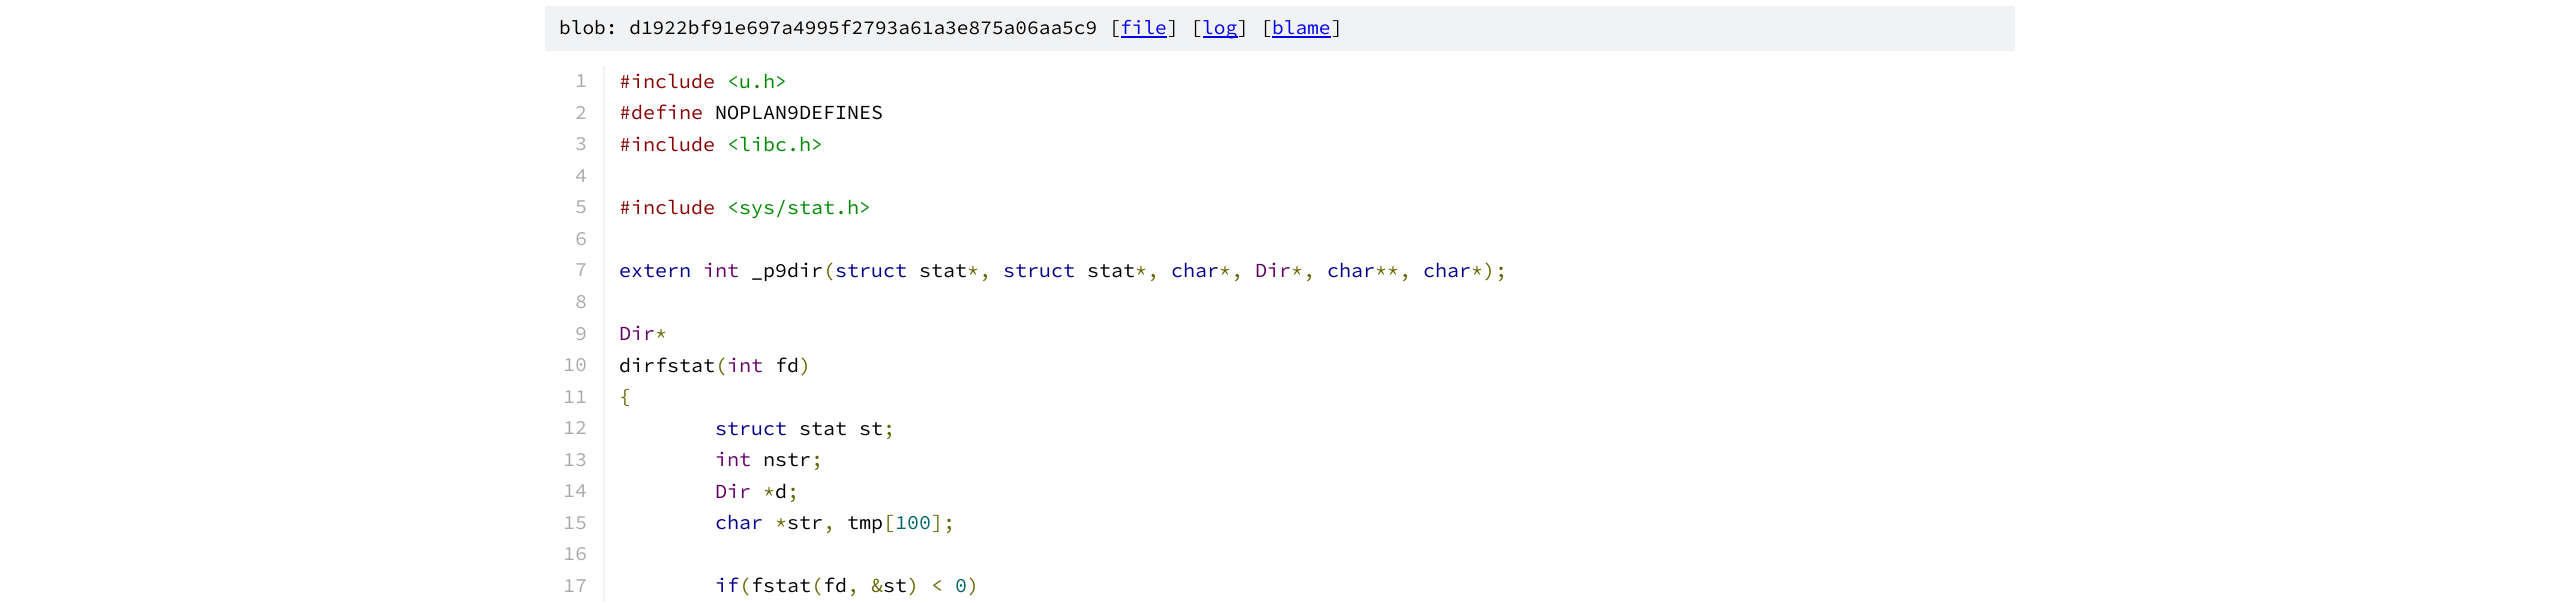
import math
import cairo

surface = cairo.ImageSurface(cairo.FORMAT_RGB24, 2557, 603)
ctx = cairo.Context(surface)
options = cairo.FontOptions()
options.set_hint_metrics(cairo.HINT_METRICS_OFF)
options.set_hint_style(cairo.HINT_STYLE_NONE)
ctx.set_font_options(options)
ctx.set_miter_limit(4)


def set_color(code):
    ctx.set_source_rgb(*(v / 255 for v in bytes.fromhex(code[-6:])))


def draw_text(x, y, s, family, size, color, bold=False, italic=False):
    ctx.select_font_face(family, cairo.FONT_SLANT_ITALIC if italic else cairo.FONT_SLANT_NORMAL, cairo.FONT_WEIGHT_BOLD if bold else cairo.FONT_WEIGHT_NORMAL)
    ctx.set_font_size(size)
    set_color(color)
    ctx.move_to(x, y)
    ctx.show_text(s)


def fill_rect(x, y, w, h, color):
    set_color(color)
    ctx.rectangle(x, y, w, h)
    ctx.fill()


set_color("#ffffff")
ctx.paint()
fill_rect(545, 6, 1470, 45, "#f1f2f3")
draw_text(559, 34, "blob: d1922bf91e697a4995f2793a61a3e875a06aa5c9 [", "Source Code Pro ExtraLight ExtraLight", 19.5, "#000000")
draw_text(1120, 34, "file", "Source Code Pro ExtraLight ExtraLight", 19.5, "#0000ee")
fill_rect(1121, 36, 46, 2, "#0000ee")
draw_text(1167, 34, "] [", "Source Code Pro ExtraLight ExtraLight", 19.5, "#000000")
fill_rect(1203, 36, 35, 2, "#0000ee")
draw_text(1202, 34, "log", "Source Code Pro ExtraLight ExtraLight", 19.5, "#0000ee")
draw_text(1237, 34, "] [", "Source Code Pro ExtraLight ExtraLight", 19.5, "#000000")
draw_text(1272, 34, "blame", "Source Code Pro ExtraLight ExtraLight", 19.5, "#0000ee")
fill_rect(1272, 36, 59, 2, "#0000ee")
draw_text(1331, 34, "]", "Source Code Pro ExtraLight ExtraLight", 19.5, "#000000")
fill_rect(603, 66, 2, 536, "#f1f2f3")
draw_text(575, 87, "1", "Source Code Pro ExtraLight ExtraLight", 20, "#aaaaaa")
draw_text(619, 88, "#include", "Source Code Pro ExtraLight ExtraLight", 20, "#880000")
draw_text(727, 88, "<u.h>", "Source Code Pro ExtraLight ExtraLight", 20, "#008800")
draw_text(575, 119, "2", "Source Code Pro ExtraLight ExtraLight", 20, "#aaaaaa")
draw_text(619, 119, "#define", "Source Code Pro ExtraLight ExtraLight", 20, "#880000")
draw_text(715, 119, "NOPLAN9DEFINES", "Source Code Pro ExtraLight ExtraLight", 20, "#000000")
draw_text(575, 150, "3", "Source Code Pro ExtraLight ExtraLight", 20, "#aaaaaa")
draw_text(619, 151, "#include", "Source Code Pro ExtraLight ExtraLight", 20, "#880000")
draw_text(727, 151, "<libc.h>", "Source Code Pro ExtraLight ExtraLight", 20, "#008800")
draw_text(575, 182, "4", "Source Code Pro ExtraLight ExtraLight", 20, "#aaaaaa")
draw_text(575, 213, "5", "Source Code Pro ExtraLight ExtraLight", 20, "#aaaaaa")
draw_text(619, 214, "#include", "Source Code Pro ExtraLight ExtraLight", 20, "#880000")
draw_text(727, 214, "<sys/stat.h>", "Source Code Pro ExtraLight ExtraLight", 20, "#008800")
draw_text(575, 245, "6", "Source Code Pro ExtraLight ExtraLight", 20, "#aaaaaa")
draw_text(575, 276, "7", "Source Code Pro ExtraLight ExtraLight", 20, "#aaaaaa")
draw_text(619, 277, "extern", "Source Code Pro ExtraLight ExtraLight", 20, "#000088")
draw_text(703, 277, "int", "Source Code Pro ExtraLight ExtraLight", 20, "#660066")
draw_text(751, 277, "_p9dir", "Source Code Pro ExtraLight ExtraLight", 20, "#000000")
draw_text(823, 277, "(", "Source Code Pro ExtraLight ExtraLight", 20, "#666600")
draw_text(835, 277, "struct", "Source Code Pro ExtraLight ExtraLight", 20, "#000088")
draw_text(919, 277, "stat", "Source Code Pro ExtraLight ExtraLight", 20, "#000000")
draw_text(967, 277, "*,", "Source Code Pro ExtraLight ExtraLight", 20, "#666600")
draw_text(1003, 277, "struct", "Source Code Pro ExtraLight ExtraLight", 20, "#000088")
draw_text(1087, 277, "stat", "Source Code Pro ExtraLight ExtraLight", 20, "#000000")
draw_text(1135, 277, "*,", "Source Code Pro ExtraLight ExtraLight", 20, "#666600")
draw_text(1171, 277, "char", "Source Code Pro ExtraLight ExtraLight", 20, "#000088")
draw_text(1219, 277, "*,", "Source Code Pro ExtraLight ExtraLight", 20, "#666600")
draw_text(1255, 277, "Dir", "Source Code Pro ExtraLight ExtraLight", 20, "#660066")
draw_text(1291, 277, "*,", "Source Code Pro ExtraLight ExtraLight", 20, "#666600")
draw_text(1327, 277, "char", "Source Code Pro ExtraLight ExtraLight", 20, "#000088")
draw_text(1375, 277, "**,", "Source Code Pro ExtraLight ExtraLight", 20, "#666600")
draw_text(1423, 277, "char", "Source Code Pro ExtraLight ExtraLight", 20, "#000088")
draw_text(1471, 277, "*);", "Source Code Pro ExtraLight ExtraLight", 20, "#666600")
draw_text(575, 308, "8", "Source Code Pro ExtraLight ExtraLight", 20, "#aaaaaa")
draw_text(575, 340, "9", "Source Code Pro ExtraLight ExtraLight", 20, "#aaaaaa")
draw_text(619, 340, "Dir", "Source Code Pro ExtraLight ExtraLight", 20, "#660066")
draw_text(655, 340, "*", "Source Code Pro ExtraLight ExtraLight", 20, "#666600")
draw_text(563, 371, "10", "Source Code Pro ExtraLight ExtraLight", 20, "#aaaaaa")
draw_text(619, 372, "dirfstat", "Source Code Pro ExtraLight ExtraLight", 20, "#000000")
draw_text(715, 372, "(", "Source Code Pro ExtraLight ExtraLight", 20, "#666600")
draw_text(727, 372, "int", "Source Code Pro ExtraLight ExtraLight", 20, "#660066")
draw_text(775, 372, "fd", "Source Code Pro ExtraLight ExtraLight", 20, "#000000")
draw_text(799, 372, ")", "Source Code Pro ExtraLight ExtraLight", 20, "#666600")
draw_text(563, 403, "11", "Source Code Pro ExtraLight ExtraLight", 20, "#aaaaaa")
draw_text(619, 403, "{", "Source Code Pro ExtraLight ExtraLight", 20, "#666600")
draw_text(563, 434, "12", "Source Code Pro ExtraLight ExtraLight", 20, "#aaaaaa")
draw_text(715, 435, "struct", "Source Code Pro ExtraLight ExtraLight", 20, "#000088")
draw_text(799, 435, "stat st", "Source Code Pro ExtraLight ExtraLight", 20, "#000000")
draw_text(883, 435, ";", "Source Code Pro ExtraLight ExtraLight", 20, "#666600")
draw_text(563, 466, "13", "Source Code Pro ExtraLight ExtraLight", 20, "#aaaaaa")
draw_text(715, 466, "int", "Source Code Pro ExtraLight ExtraLight", 20, "#660066")
draw_text(763, 466, "nstr", "Source Code Pro ExtraLight ExtraLight", 20, "#000000")
draw_text(811, 466, ";", "Source Code Pro ExtraLight ExtraLight", 20, "#666600")
draw_text(563, 497, "14", "Source Code Pro ExtraLight ExtraLight", 20, "#aaaaaa")
draw_text(715, 498, "Dir", "Source Code Pro ExtraLight ExtraLight", 20, "#660066")
draw_text(763, 498, "* ;", "Source Code Pro ExtraLight ExtraLight", 20, "#666600")
draw_text(775, 498, "d", "Source Code Pro ExtraLight ExtraLight", 20, "#000000")
draw_text(563, 529, "15", "Source Code Pro ExtraLight ExtraLight", 20, "#aaaaaa")
draw_text(715, 529, "char", "Source Code Pro ExtraLight ExtraLight", 20, "#000088")
draw_text(775, 529, "*", "Source Code Pro ExtraLight ExtraLight", 20, "#666600")
draw_text(787, 529, "str", "Source Code Pro ExtraLight ExtraLight", 20, "#000000")
draw_text(847, 529, "tmp", "Source Code Pro ExtraLight ExtraLight", 20, "#000000")
draw_text(883, 529, "[", "Source Code Pro ExtraLight ExtraLight", 20, "#666600")
draw_text(895, 529, "100", "Source Code Pro ExtraLight ExtraLight", 20, "#006666")
draw_text(931, 529, "];", "Source Code Pro ExtraLight ExtraLight", 20, "#666600")
draw_text(823, 529, ",", "Source Code Pro ExtraLight ExtraLight", 20, "#666600")
draw_text(563, 560, "16", "Source Code Pro ExtraLight ExtraLight", 20, "#aaaaaa")
draw_text(563, 592, "17", "Source Code Pro ExtraLight ExtraLight", 20, "#aaaaaa")
draw_text(715, 592, "if", "Source Code Pro ExtraLight ExtraLight", 20, "#000088")
draw_text(739, 592, "(", "Source Code Pro ExtraLight ExtraLight", 20, "#666600")
draw_text(751, 592, "fstat fd", "Source Code Pro ExtraLight ExtraLight", 20, "#000000")
draw_text(811, 592, "(", "Source Code Pro ExtraLight ExtraLight", 20, "#666600")
draw_text(847, 592, ", &", "Source Code Pro ExtraLight ExtraLight", 20, "#666600")
draw_text(883, 592, "st", "Source Code Pro ExtraLight ExtraLight", 20, "#000000")
draw_text(907, 592, ") <", "Source Code Pro ExtraLight ExtraLight", 20, "#666600")
draw_text(955, 592, "0", "Source Code Pro ExtraLight ExtraLight", 20, "#006666")
draw_text(967, 592, ")", "Source Code Pro ExtraLight ExtraLight", 20, "#666600")
surface.write_to_png("output.png")
